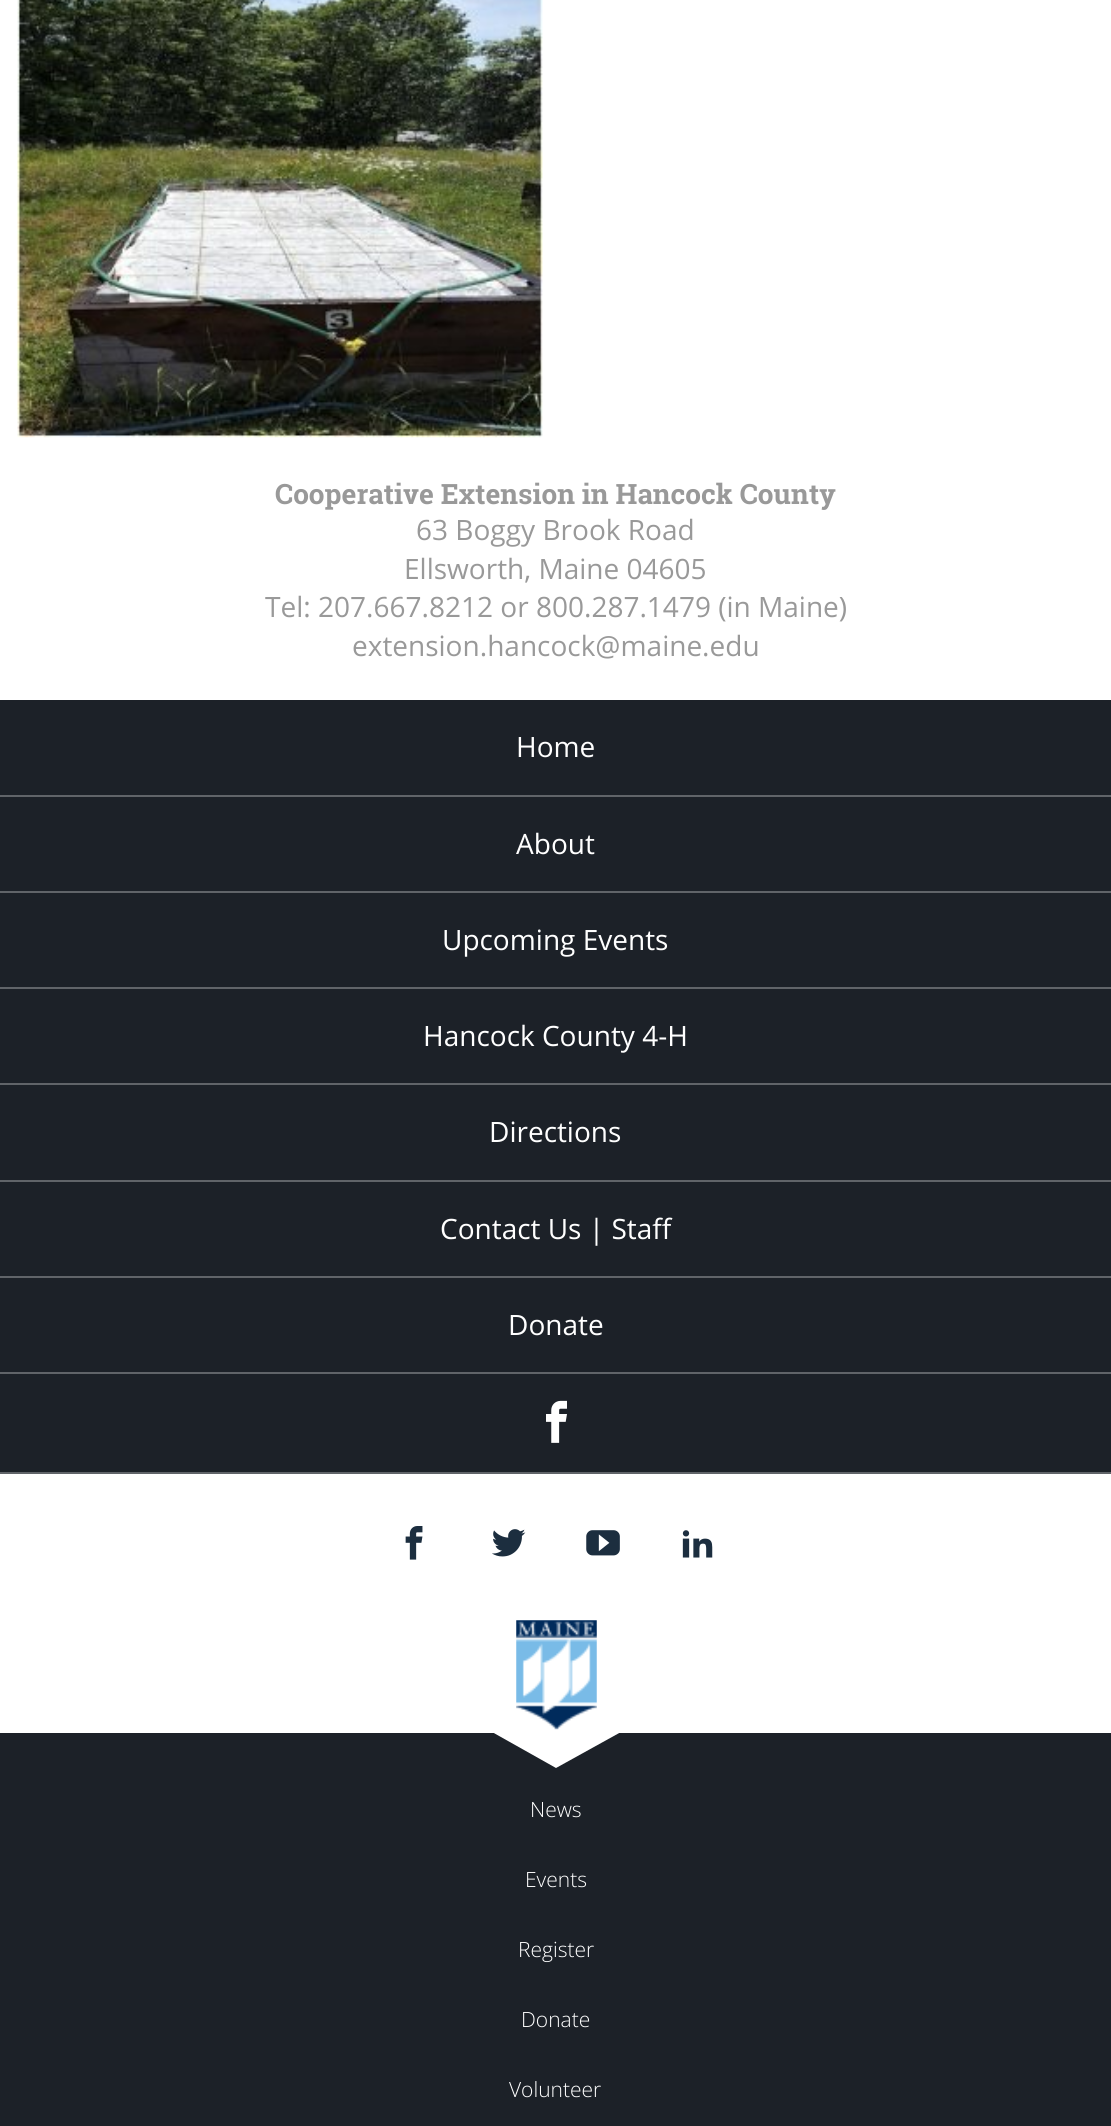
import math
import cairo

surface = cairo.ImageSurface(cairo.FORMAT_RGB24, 1111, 2126)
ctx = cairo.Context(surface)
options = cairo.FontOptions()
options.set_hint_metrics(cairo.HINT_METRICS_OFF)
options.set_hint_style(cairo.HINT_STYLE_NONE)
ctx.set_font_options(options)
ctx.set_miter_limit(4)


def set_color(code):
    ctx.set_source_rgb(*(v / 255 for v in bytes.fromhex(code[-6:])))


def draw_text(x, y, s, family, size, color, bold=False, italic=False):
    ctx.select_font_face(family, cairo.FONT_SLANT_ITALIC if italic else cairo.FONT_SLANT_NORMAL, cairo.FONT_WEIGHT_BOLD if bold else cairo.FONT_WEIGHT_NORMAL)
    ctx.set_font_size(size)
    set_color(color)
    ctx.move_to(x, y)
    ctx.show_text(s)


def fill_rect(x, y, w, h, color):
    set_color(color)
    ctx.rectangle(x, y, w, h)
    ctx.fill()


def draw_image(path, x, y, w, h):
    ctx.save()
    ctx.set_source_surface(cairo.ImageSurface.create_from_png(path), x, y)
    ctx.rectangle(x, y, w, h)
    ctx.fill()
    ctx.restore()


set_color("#ffffff")
ctx.paint()
draw_image("assets/img1.png", 17, 0, 526, 438)
draw_text(275, 504, "Cooperative Extension in Hancock County", "Roboto Slab", 28, "#999999", bold=True)
draw_text(416, 540, "63 Boggy Brook Road", "Open Sans", 28, "#999999")
draw_text(404, 579, "Ellsworth, Maine 04605", "Open Sans", 28, "#999999")
draw_text(265, 617, "Tel: 207.667.8212 or 800.287.1479 (in Maine)", "Open Sans", 28, "#999999")
draw_text(352, 656, "extension.hancock@maine.edu", "Open Sans", 28, "#999999")
fill_rect(0, 700, 1111, 772, "#1c2128")
fill_rect(0, 795, 1111, 2, "#606469")
draw_text(516, 757, "Home", "Open Sans", 28, "#ffffff")
fill_rect(0, 891, 1111, 2, "#606469")
draw_text(516, 854, "About", "Open Sans", 28, "#ffffff")
fill_rect(0, 987, 1111, 2, "#606469")
draw_text(442, 950, "Upcoming Events", "Open Sans", 28, "#ffffff")
fill_rect(0, 1083, 1111, 2, "#606469")
draw_text(423, 1046, "Hancock County 4-H", "Open Sans", 28, "#ffffff")
fill_rect(0, 1180, 1111, 2, "#606469")
draw_text(489, 1142, "Directions", "Open Sans", 28, "#ffffff")
fill_rect(0, 1276, 1111, 2, "#606469")
draw_text(440, 1239, "Contact Us | Staff", "Open Sans", 28, "#ffffff")
fill_rect(0, 1372, 1111, 2, "#606469")
draw_text(508, 1335, "Donate", "Open Sans", 28, "#ffffff")
fill_rect(0, 1472, 1111, 2, "#606469")
draw_image("assets/img2.png", 546, 1400, 21, 43)
draw_image("assets/img3.png", 405, 1526, 18, 34)
draw_image("assets/img4.png", 492, 1529, 34, 28)
draw_image("assets/img5.png", 586, 1530, 34, 26)
draw_image("assets/img6.png", 682, 1530, 31, 28)
draw_image("assets/img7.png", 516, 1620, 81, 110)
fill_rect(0, 1733, 1111, 393, "#1c2128")
set_color("#ffffff")
ctx.new_path()
ctx.move_to(492, 1732)
ctx.line_to(621, 1732)
ctx.line_to(556, 1768)
ctx.close_path()
ctx.fill()
draw_text(530, 1817, "News", "Open Sans Light", 21, "#ffffff")
draw_text(525, 1887, "Events", "Open Sans Light", 21, "#ffffff")
draw_text(518, 1957, "Register", "Open Sans Light", 21, "#ffffff")
draw_text(521, 2027, "Donate", "Open Sans Light", 21, "#ffffff")
draw_text(509, 2097, "Volunteer", "Open Sans Light", 21, "#ffffff")
surface.write_to_png("output.png")
